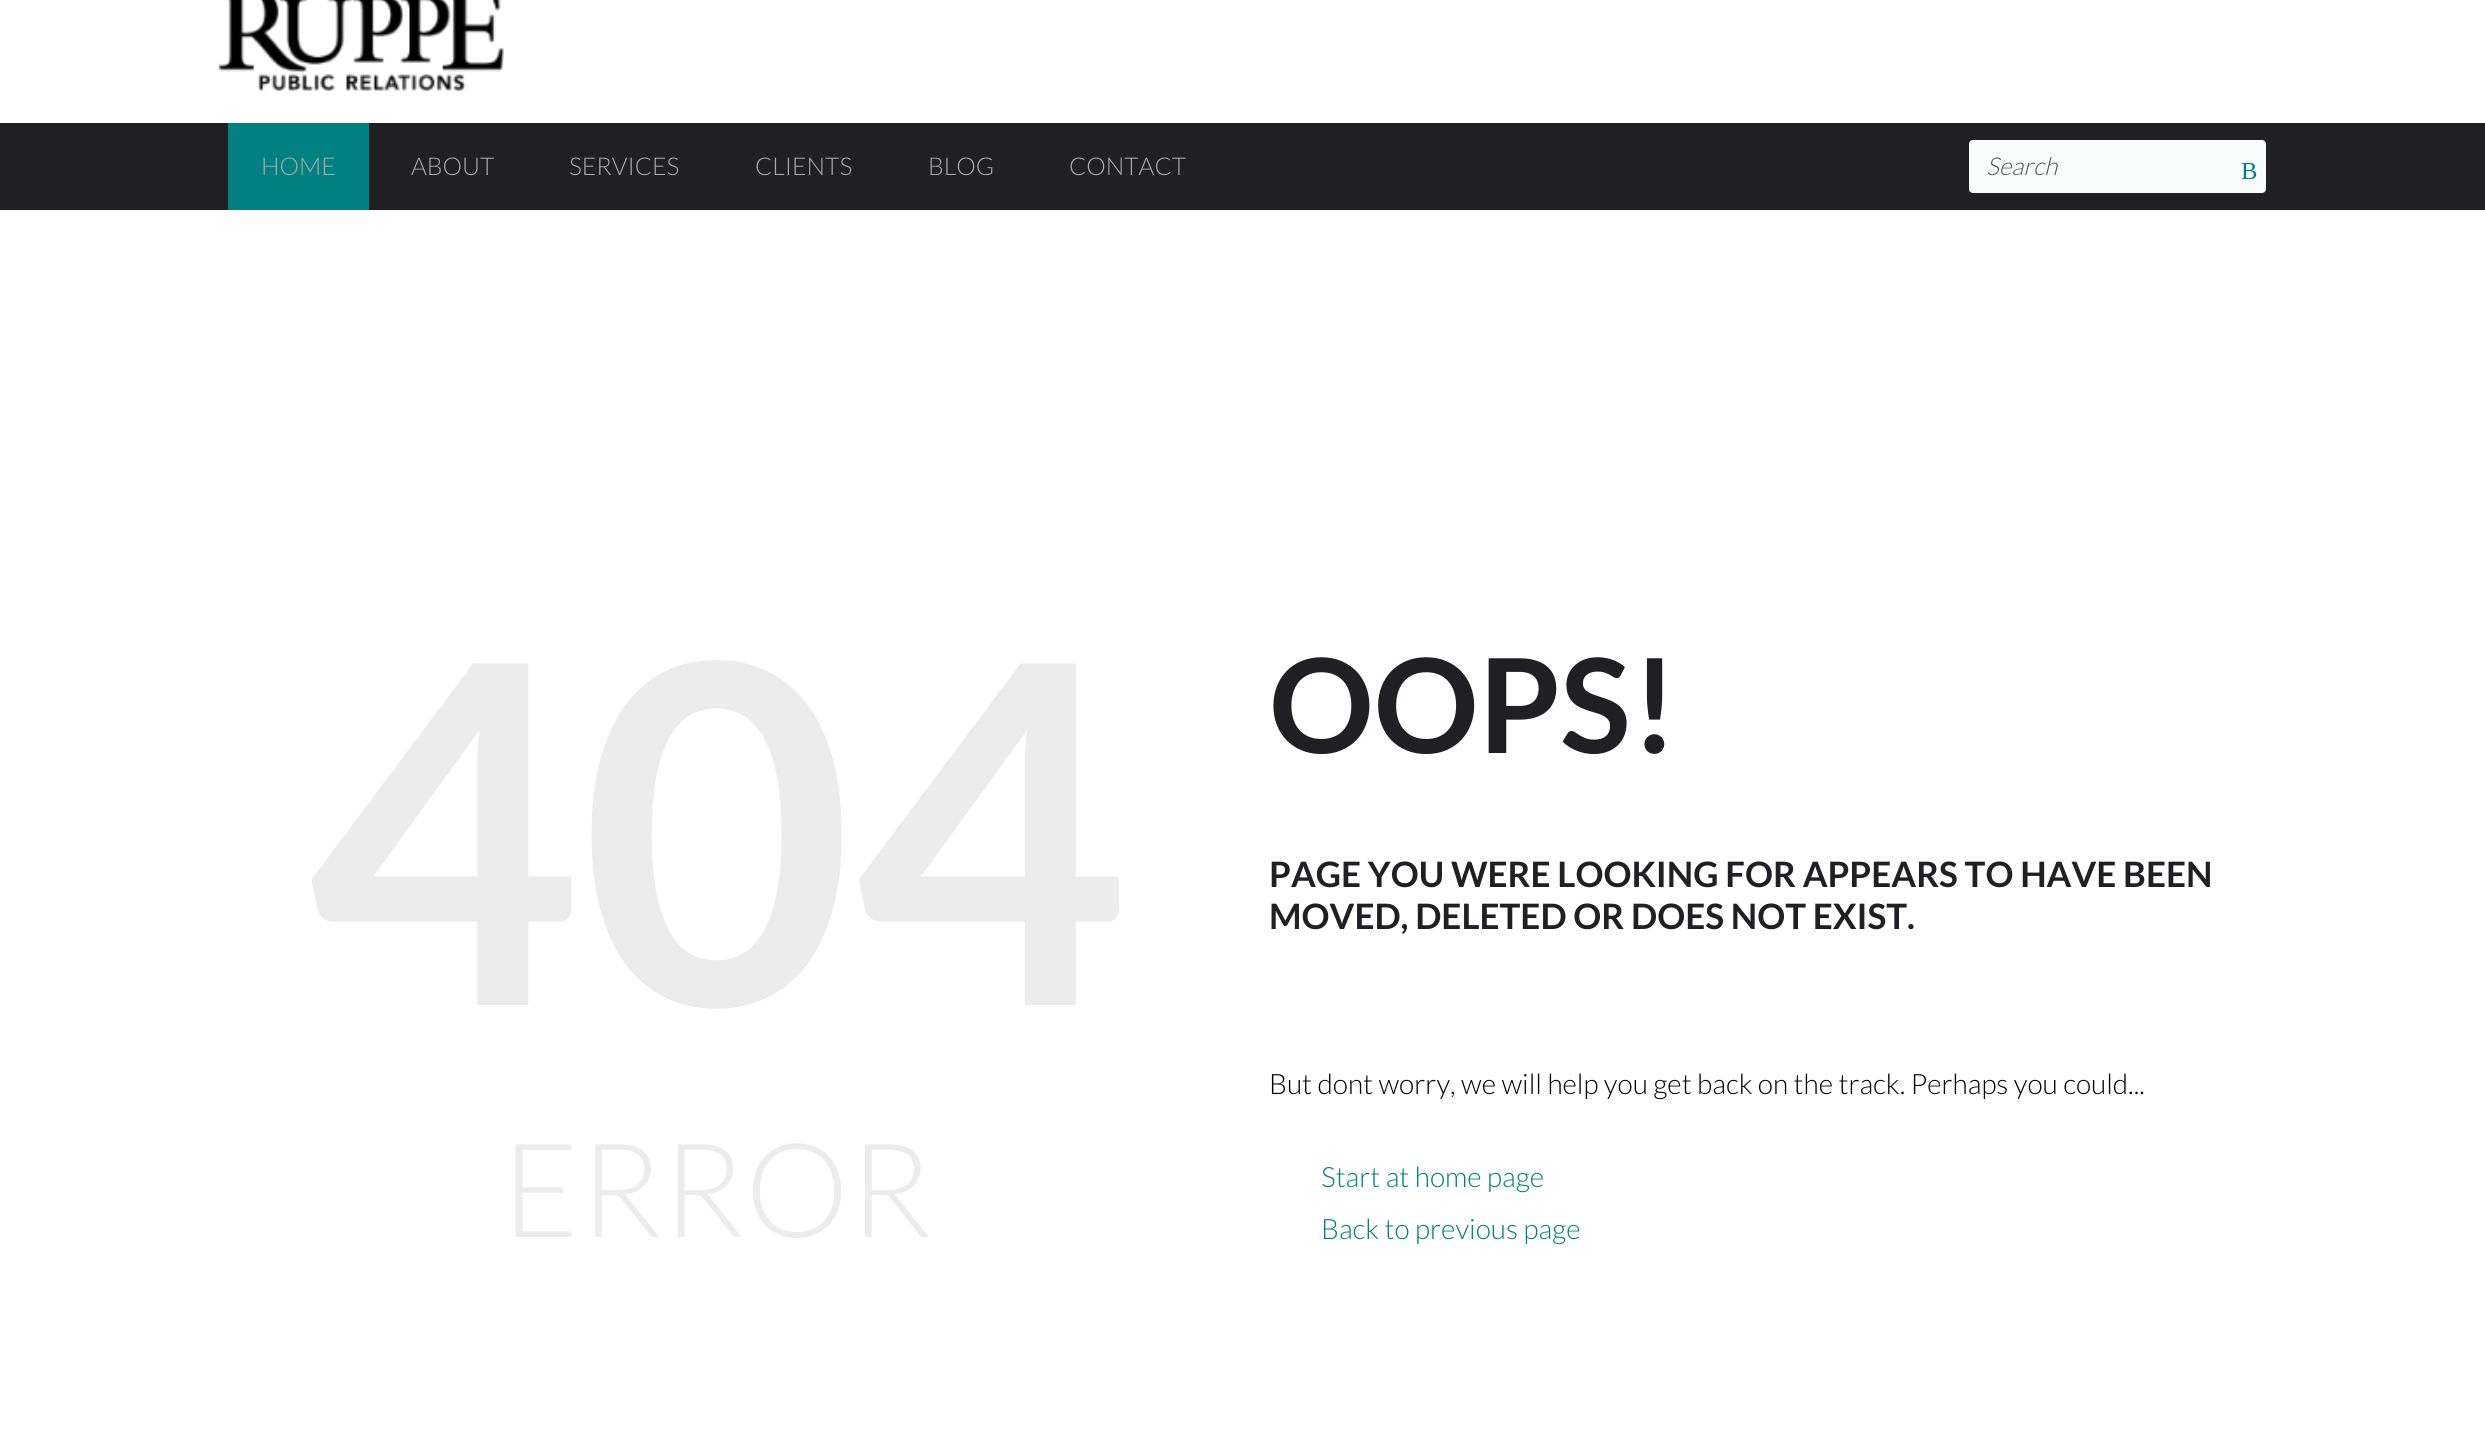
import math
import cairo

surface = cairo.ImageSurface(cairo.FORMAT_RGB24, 2485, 1431)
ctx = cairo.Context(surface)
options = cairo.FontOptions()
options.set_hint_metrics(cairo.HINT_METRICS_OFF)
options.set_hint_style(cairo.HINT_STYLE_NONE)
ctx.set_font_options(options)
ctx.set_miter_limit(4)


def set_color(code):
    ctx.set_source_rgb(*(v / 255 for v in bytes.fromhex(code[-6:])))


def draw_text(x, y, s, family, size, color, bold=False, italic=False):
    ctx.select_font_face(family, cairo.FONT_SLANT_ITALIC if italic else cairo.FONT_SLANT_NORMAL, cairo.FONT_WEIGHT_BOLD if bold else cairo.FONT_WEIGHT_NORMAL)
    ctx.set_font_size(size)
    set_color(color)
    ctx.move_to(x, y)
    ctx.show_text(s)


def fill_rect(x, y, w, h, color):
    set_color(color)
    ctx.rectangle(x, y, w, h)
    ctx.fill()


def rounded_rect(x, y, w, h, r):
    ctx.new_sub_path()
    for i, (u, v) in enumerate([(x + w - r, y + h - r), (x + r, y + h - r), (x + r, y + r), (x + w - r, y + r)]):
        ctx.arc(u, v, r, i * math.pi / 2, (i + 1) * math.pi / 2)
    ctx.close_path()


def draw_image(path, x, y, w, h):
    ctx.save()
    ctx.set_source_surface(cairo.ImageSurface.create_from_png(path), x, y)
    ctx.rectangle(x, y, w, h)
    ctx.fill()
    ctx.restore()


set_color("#ffffff")
ctx.paint()
draw_image("assets/img1.png", 218, 0, 286, 91)
fill_rect(0, 123, 2485, 87, "#202024")
fill_rect(228, 123, 141, 87, "#008080")
draw_text(261, 175, "HOME", "Lato Light", 24.5, "#aaaaaa")
draw_text(411, 175, "ABOUT", "Lato Light", 24.5, "#aaaaaa")
draw_text(569, 175, "SERVICES", "Lato Light", 24.5, "#aaaaaa")
draw_text(755, 175, "CLIENTS", "Lato Light", 24.5, "#aaaaaa")
draw_text(928, 175, "BLOG", "Lato Light", 24.5, "#aaaaaa")
draw_text(1069, 175, "CONTACT", "Lato Light", 24.5, "#aaaaaa")
set_color("#fafcfc")
rounded_rect(1969, 140, 297, 53, 4)
ctx.fill()
draw_text(1986, 175, "Search", "Lato Light", 24.5, "#555555", italic=True)
draw_text(2241, 179, "B", "Liberation Serif", 24.5, "#008080")
draw_text(306, 1005, "404", "Lato", 472, "#ececec", bold=True)
draw_text(502, 1237, "ERROR", "Lato Light", 131, "#ececec")
draw_text(1269, 753, "OOPS!", "Lato", 131, "#202024", bold=True)
draw_text(1269, 887, "PAGE YOU WERE LOOKING FOR APPEARS TO HAVE BEEN", "Lato", 35, "#202024", bold=True)
draw_text(1269, 929, "MOVED, DELETED OR DOES NOT EXIST.", "Lato", 35, "#202024", bold=True)
draw_text(1269, 1094, "But dont worry, we will help you get back on the track. Perhaps you could...", "Lato Light", 28, "#000000")
draw_text(1321, 1187, "Start at home page", "Lato Light", 28, "#008080")
draw_text(1321, 1239, "Back to previous page", "Lato Light", 28, "#008080")
surface.write_to_png("output.png")
